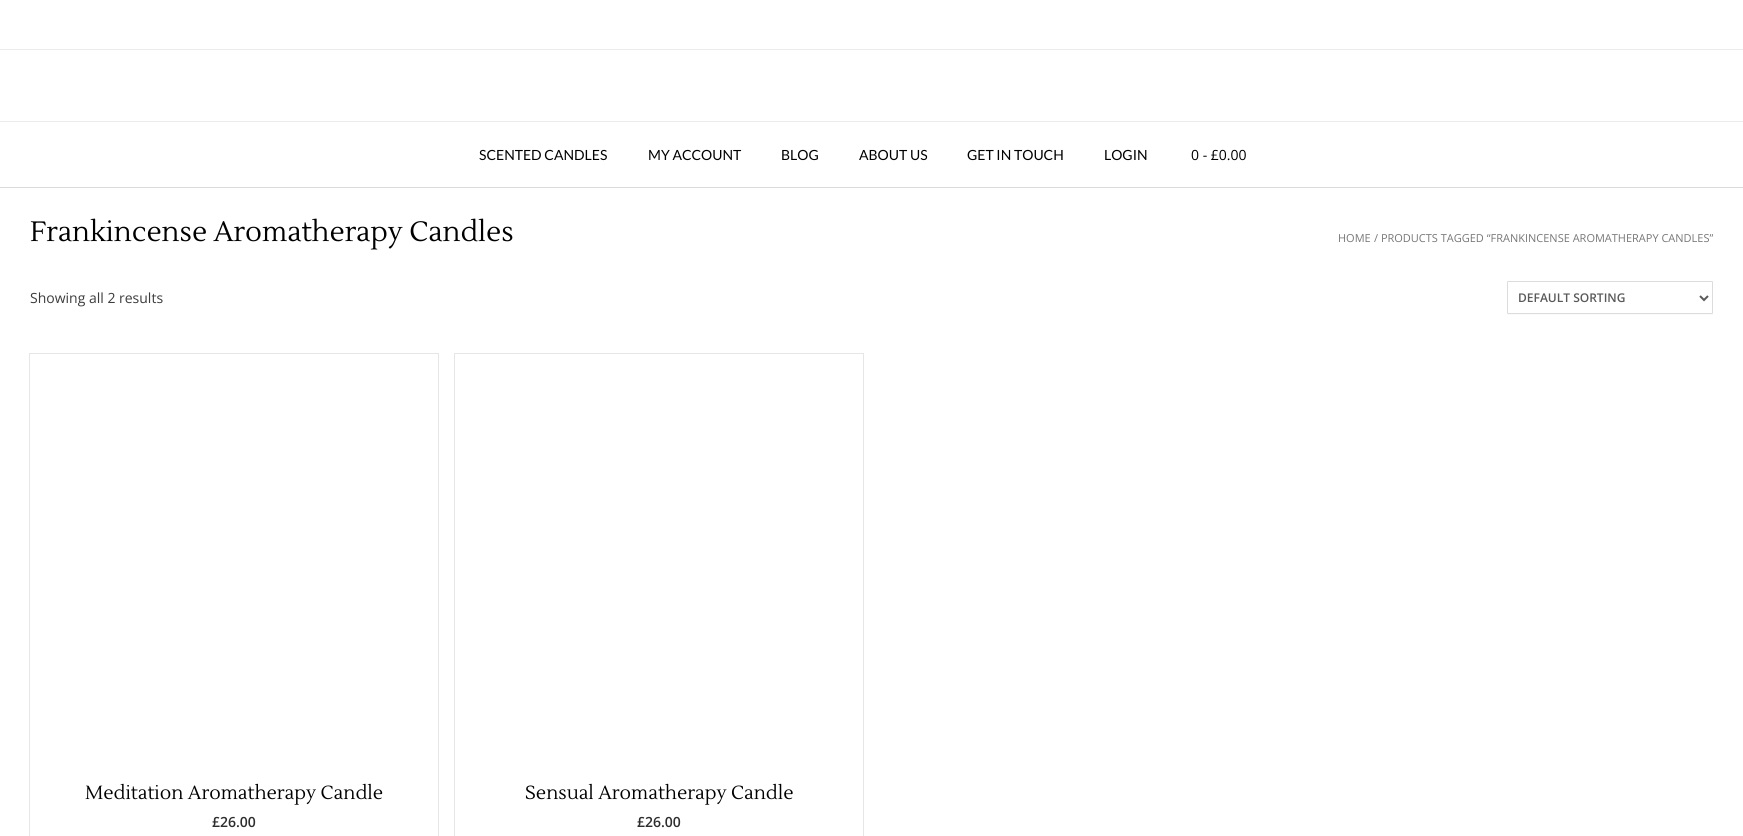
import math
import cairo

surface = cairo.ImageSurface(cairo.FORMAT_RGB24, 1743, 836)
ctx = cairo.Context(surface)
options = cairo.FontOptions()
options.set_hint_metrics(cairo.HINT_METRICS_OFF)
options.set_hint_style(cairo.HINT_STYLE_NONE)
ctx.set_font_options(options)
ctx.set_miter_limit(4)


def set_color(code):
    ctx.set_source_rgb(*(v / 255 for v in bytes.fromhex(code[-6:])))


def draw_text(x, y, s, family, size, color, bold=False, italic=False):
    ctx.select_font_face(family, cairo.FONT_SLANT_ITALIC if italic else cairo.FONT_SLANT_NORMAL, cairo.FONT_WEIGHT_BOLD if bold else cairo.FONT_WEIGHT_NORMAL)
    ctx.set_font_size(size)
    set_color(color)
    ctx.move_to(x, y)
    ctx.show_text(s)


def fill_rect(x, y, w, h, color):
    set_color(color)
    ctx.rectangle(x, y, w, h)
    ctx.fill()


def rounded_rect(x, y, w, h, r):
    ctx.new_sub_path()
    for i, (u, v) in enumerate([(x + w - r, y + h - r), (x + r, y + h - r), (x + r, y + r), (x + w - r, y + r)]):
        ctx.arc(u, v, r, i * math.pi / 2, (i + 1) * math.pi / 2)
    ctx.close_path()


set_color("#ffffff")
ctx.paint()
fill_rect(0, 187, 1743, 1, "#dbdbdb")
fill_rect(0, 49, 1743, 1, "#ebebeb")
fill_rect(0, 121, 1743, 1, "#ebebeb")
draw_text(479, 160, "SCENTED CANDLES", "Lato", 14, "#000000")
draw_text(648, 160, "MY ACCOUNT", "Lato", 14, "#000000")
draw_text(781, 160, "BLOG", "Lato", 14, "#000000")
draw_text(859, 160, "ABOUT US", "Lato", 14, "#000000")
draw_text(967, 160, "GET IN TOUCH", "Lato", 14, "#000000")
draw_text(1104, 160, "LOGIN", "Lato", 14, "#000000")
draw_text(1191, 160, "0 - £0.00", "Open Sans", 14, "#000000")
draw_text(30, 241, "Frankincense Aromatherapy Candles", "Lustria", 28, "#000000")
draw_text(1338, 242, "HOME", "Open Sans", 11, "#767676")
draw_text(1374, 242, "/ PRODUCTS TAGGED “FRANKINCENSE AROMATHERAPY CANDLES”", "Open Sans", 11, "#767676")
draw_text(30, 303, "Showing all 2 results", "Open Sans", 14, "#3c3c3c")
set_color("#fafafa")
ctx.new_path()
ctx.move_to(1507, 313)
ctx.curve_to(1507, 314, 1507, 315, 1508, 315)
ctx.line_to(1712, 315)
ctx.line_to(1713, 315)
ctx.line_to(1713, 313)
ctx.line_to(1712, 314)
ctx.line_to(1508, 314)
ctx.close_path()
ctx.fill()
rounded_rect(1507.5, 281.5, 205, 32, 0.5)
set_color("#dcdcdc")
ctx.set_line_width(1)
ctx.stroke()
ctx.new_path()
ctx.move_to(1700, 296)
ctx.line_to(1704, 300)
ctx.line_to(1708, 296)
set_color("#595959")
ctx.set_line_width(2)
ctx.stroke()
draw_text(1518, 302, "DEFAULT SORTING", "Open Sans SemiBold", 12, "#595959")
ctx.rectangle(29.5, 353.5, 409, 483)
set_color("#e6e6e6")
ctx.set_line_width(1)
ctx.stroke()
draw_text(85, 799, "Meditation Aromatherapy Candle", "Lustria", 19, "#000000")
draw_text(212, 827, "£26.00", "Open Sans SemiBold", 14, "#2d2d2d")
ctx.rectangle(454.5, 353.5, 409, 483)
set_color("#e6e6e6")
ctx.stroke()
draw_text(525, 799, "Sensual Aromatherapy Candle", "Lustria", 19, "#000000")
draw_text(637, 827, "£26.00", "Open Sans SemiBold", 14, "#2d2d2d")
surface.write_to_png("output.png")
